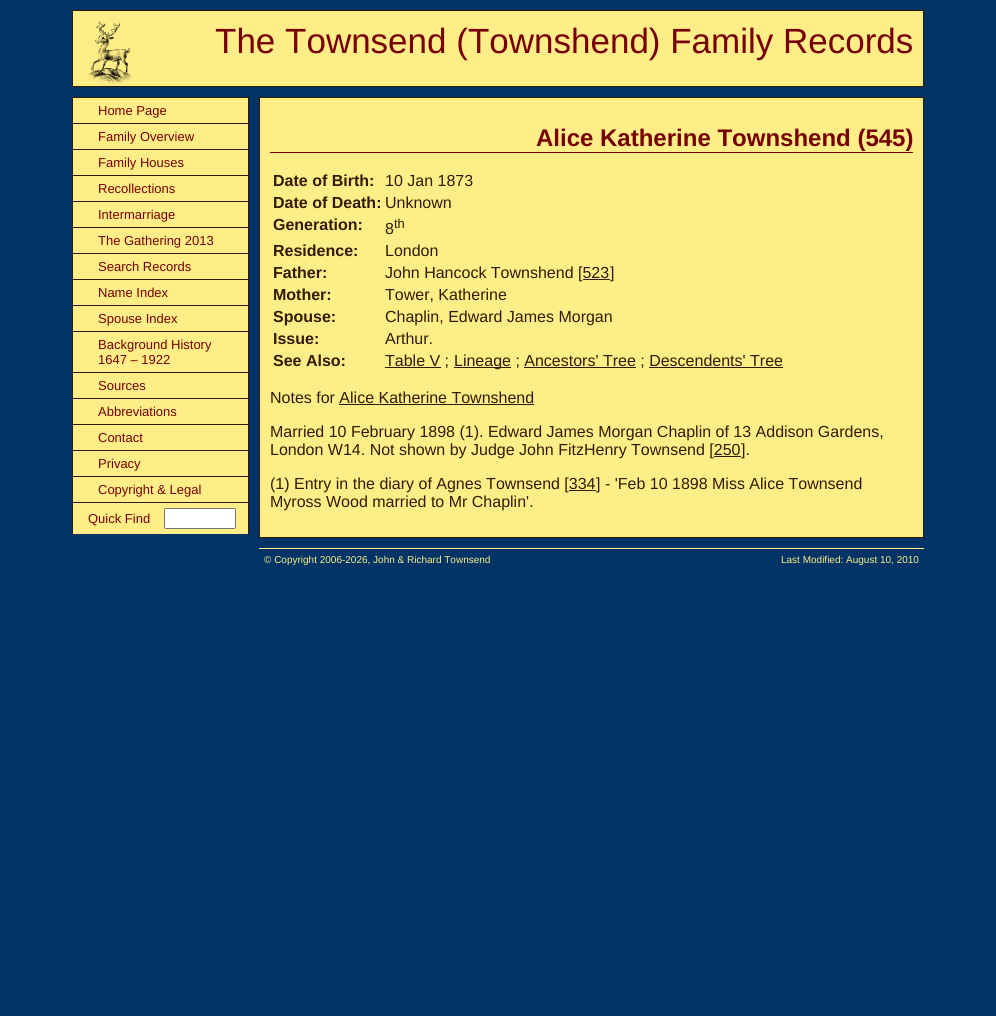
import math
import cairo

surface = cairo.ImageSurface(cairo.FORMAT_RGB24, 996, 1016)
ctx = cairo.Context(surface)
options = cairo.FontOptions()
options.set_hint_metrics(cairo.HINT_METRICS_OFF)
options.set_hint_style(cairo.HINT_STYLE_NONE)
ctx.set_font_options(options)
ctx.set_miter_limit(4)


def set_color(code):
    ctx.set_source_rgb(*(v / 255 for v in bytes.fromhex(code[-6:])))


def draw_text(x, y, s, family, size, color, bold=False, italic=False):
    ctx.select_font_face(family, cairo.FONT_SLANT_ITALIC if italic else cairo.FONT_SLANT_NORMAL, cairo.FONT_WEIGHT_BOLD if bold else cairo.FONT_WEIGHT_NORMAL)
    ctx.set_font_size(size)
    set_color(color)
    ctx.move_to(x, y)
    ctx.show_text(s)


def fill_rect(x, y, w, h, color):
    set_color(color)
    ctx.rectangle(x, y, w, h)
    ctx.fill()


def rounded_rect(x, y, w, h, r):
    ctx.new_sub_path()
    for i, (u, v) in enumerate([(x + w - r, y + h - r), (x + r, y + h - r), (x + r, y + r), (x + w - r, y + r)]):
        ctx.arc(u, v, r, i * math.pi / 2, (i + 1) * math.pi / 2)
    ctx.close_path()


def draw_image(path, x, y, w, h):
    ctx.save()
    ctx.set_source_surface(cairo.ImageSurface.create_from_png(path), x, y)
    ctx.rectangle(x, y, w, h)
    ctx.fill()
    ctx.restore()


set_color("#003366")
ctx.paint()
fill_rect(73, 11, 850, 75, "#ffee88")
draw_image("assets/img1.png", 88, 21, 44, 64)
ctx.rectangle(72.5, 10.5, 851, 76)
set_color("#331a00")
ctx.set_line_width(1)
ctx.stroke()
draw_text(215, 53, "The Townsend (Townshend) Family Records", "Liberation Sans", 35, "#770000")
fill_rect(72, 97, 177, 1, "#331a00")
fill_rect(248, 97, 1, 437, "#331a00")
fill_rect(72, 97, 1, 437, "#331a00")
fill_rect(73, 98, 175, 404, "#ffee88")
fill_rect(73, 123, 175, 1, "#331a00")
draw_text(98, 115, "Home Page", "Liberation Sans", 13, "#770000")
fill_rect(73, 149, 175, 1, "#331a00")
draw_text(98, 141, "Family Overview", "Liberation Sans", 13, "#770000")
fill_rect(73, 175, 175, 1, "#331a00")
draw_text(98, 167, "Family Houses", "Liberation Sans", 13, "#770000")
fill_rect(73, 201, 175, 1, "#331a00")
draw_text(98, 193, "Recollections", "Liberation Sans", 13, "#770000")
fill_rect(73, 227, 175, 1, "#331a00")
draw_text(98, 219, "Intermarriage", "Liberation Sans", 13, "#770000")
fill_rect(73, 253, 175, 1, "#331a00")
draw_text(98, 245, "The Gathering 2013", "Liberation Sans", 13, "#770000")
fill_rect(73, 279, 175, 1, "#331a00")
draw_text(98, 271, "Search Records", "Liberation Sans", 13, "#770000")
fill_rect(73, 305, 175, 1, "#331a00")
draw_text(98, 297, "Name Index", "Liberation Sans", 13, "#770000")
fill_rect(73, 331, 175, 1, "#331a00")
draw_text(98, 323, "Spouse Index", "Liberation Sans", 13, "#770000")
fill_rect(73, 372, 175, 1, "#331a00")
draw_text(98, 349, "Background History", "Liberation Sans", 13, "#770000")
draw_text(98, 364, "1647 – 1922", "Liberation Sans", 13, "#770000")
fill_rect(73, 398, 175, 1, "#331a00")
draw_text(98, 390, "Sources", "Liberation Sans", 13, "#770000")
fill_rect(73, 424, 175, 1, "#331a00")
draw_text(98, 416, "Abbreviations", "Liberation Sans", 13, "#770000")
fill_rect(73, 450, 175, 1, "#331a00")
draw_text(98, 442, "Contact", "Liberation Sans", 13, "#770000")
fill_rect(73, 476, 175, 1, "#331a00")
draw_text(98, 468, "Privacy", "Liberation Sans", 13, "#770000")
fill_rect(73, 502, 175, 1, "#331a00")
draw_text(98, 494, "Copyright & Legal", "Liberation Sans", 13, "#770000")
fill_rect(73, 503, 175, 31, "#ffee88")
draw_text(88, 523, "Quick Find", "Liberation Sans", 13, "#770000")
set_color("#ffffff")
rounded_rect(164.5, 508.5, 71, 20, 1.5)
ctx.fill_preserve()
set_color("#767676")
ctx.stroke()
set_color("#ffee88")
ctx.rectangle(259.5, 97.5, 664, 440)
ctx.fill_preserve()
set_color("#331a00")
ctx.stroke()
fill_rect(270, 152, 643, 1, "#770000")
draw_text(536, 146, "Alice Katherine Townshend (545)", "Liberation Sans", 24, "#770000", bold=True)
draw_text(273, 186, "Date of Birth:", "Liberation Sans", 16, "#331a00", bold=True)
draw_text(385, 186, "10 Jan 1873", "Liberation Sans", 16, "#331a00")
draw_text(273, 208, "Date of Death:", "Liberation Sans", 16, "#331a00", bold=True)
draw_text(385, 208, "Unknown", "Liberation Sans", 16, "#331a00")
draw_text(273, 230, "Generation:", "Liberation Sans", 16, "#331a00", bold=True)
draw_text(385, 234, "8", "Liberation Sans", 16, "#331a00")
draw_text(394, 228, "th", "Liberation Sans", 13, "#331a00")
draw_text(273, 256, "Residence:", "Liberation Sans", 16, "#331a00", bold=True)
draw_text(385, 256, "London", "Liberation Sans", 16, "#331a00")
draw_text(273, 278, "Father:", "Liberation Sans", 16, "#331a00", bold=True)
draw_text(385, 278, "John Hancock Townshend [523", "Liberation Sans", 16, "#331a00")
fill_rect(583, 279, 27, 1, "#331a00")
draw_text(610, 278, "]", "Liberation Sans", 16, "#331a00")
draw_text(273, 300, "Mother:", "Liberation Sans", 16, "#331a00", bold=True)
draw_text(385, 300, "Tower, Katherine", "Liberation Sans", 16, "#331a00")
draw_text(273, 322, "Spouse:", "Liberation Sans", 16, "#331a00", bold=True)
draw_text(385, 322, "Chaplin, Edward James Morgan", "Liberation Sans", 16, "#331a00")
draw_text(273, 344, "Issue:", "Liberation Sans", 16, "#331a00", bold=True)
draw_text(385, 344, "Arthur.", "Liberation Sans", 16, "#331a00")
draw_text(273, 366, "See Also:", "Liberation Sans", 16, "#331a00", bold=True)
fill_rect(385, 367, 56, 1, "#331a00")
draw_text(385, 366, "Table V ;", "Liberation Sans", 16, "#331a00")
fill_rect(454, 367, 57, 1, "#331a00")
draw_text(454, 366, "Lineage ; Ancestors' Tree ; Descendents' Tree", "Liberation Sans", 16, "#331a00")
fill_rect(524, 367, 112, 1, "#331a00")
fill_rect(649, 367, 134, 1, "#331a00")
draw_text(270, 403, "Notes for Alice Katherine Townshend", "Liberation Sans", 16, "#331a00")
fill_rect(339, 404, 195, 1, "#331a00")
draw_text(270, 437, "Married 10 February 1898 (1). Edward James Morgan Chaplin of 13 Addison Gardens,", "Liberation Sans", 16, "#331a00")
draw_text(270, 455, "London W14. Not shown by Judge John FitzHenry Townsend [250", "Liberation Sans", 16, "#331a00")
fill_rect(714, 456, 27, 1, "#331a00")
draw_text(741, 455, "].", "Liberation Sans", 16, "#331a00")
draw_text(270, 489, "(1) Entry in the diary of Agnes Townsend [334", "Liberation Sans", 16, "#331a00")
fill_rect(569, 490, 27, 1, "#331a00")
draw_text(596, 489, "] - 'Feb 10 1898 Miss Alice Townsend", "Liberation Sans", 16, "#331a00")
draw_text(270, 507, "Myross Wood married to Mr Chaplin'.", "Liberation Sans", 16, "#331a00")
fill_rect(259, 548, 665, 1, "#ffee88")
draw_text(264, 563, "© Copyright 2006-2026, John & Richard Townsend", "Liberation Sans", 10, "#ffee88")
draw_text(781, 563, "Last Modified: August 10, 2010", "Liberation Sans", 10, "#ffee88")
surface.write_to_png("output.png")
